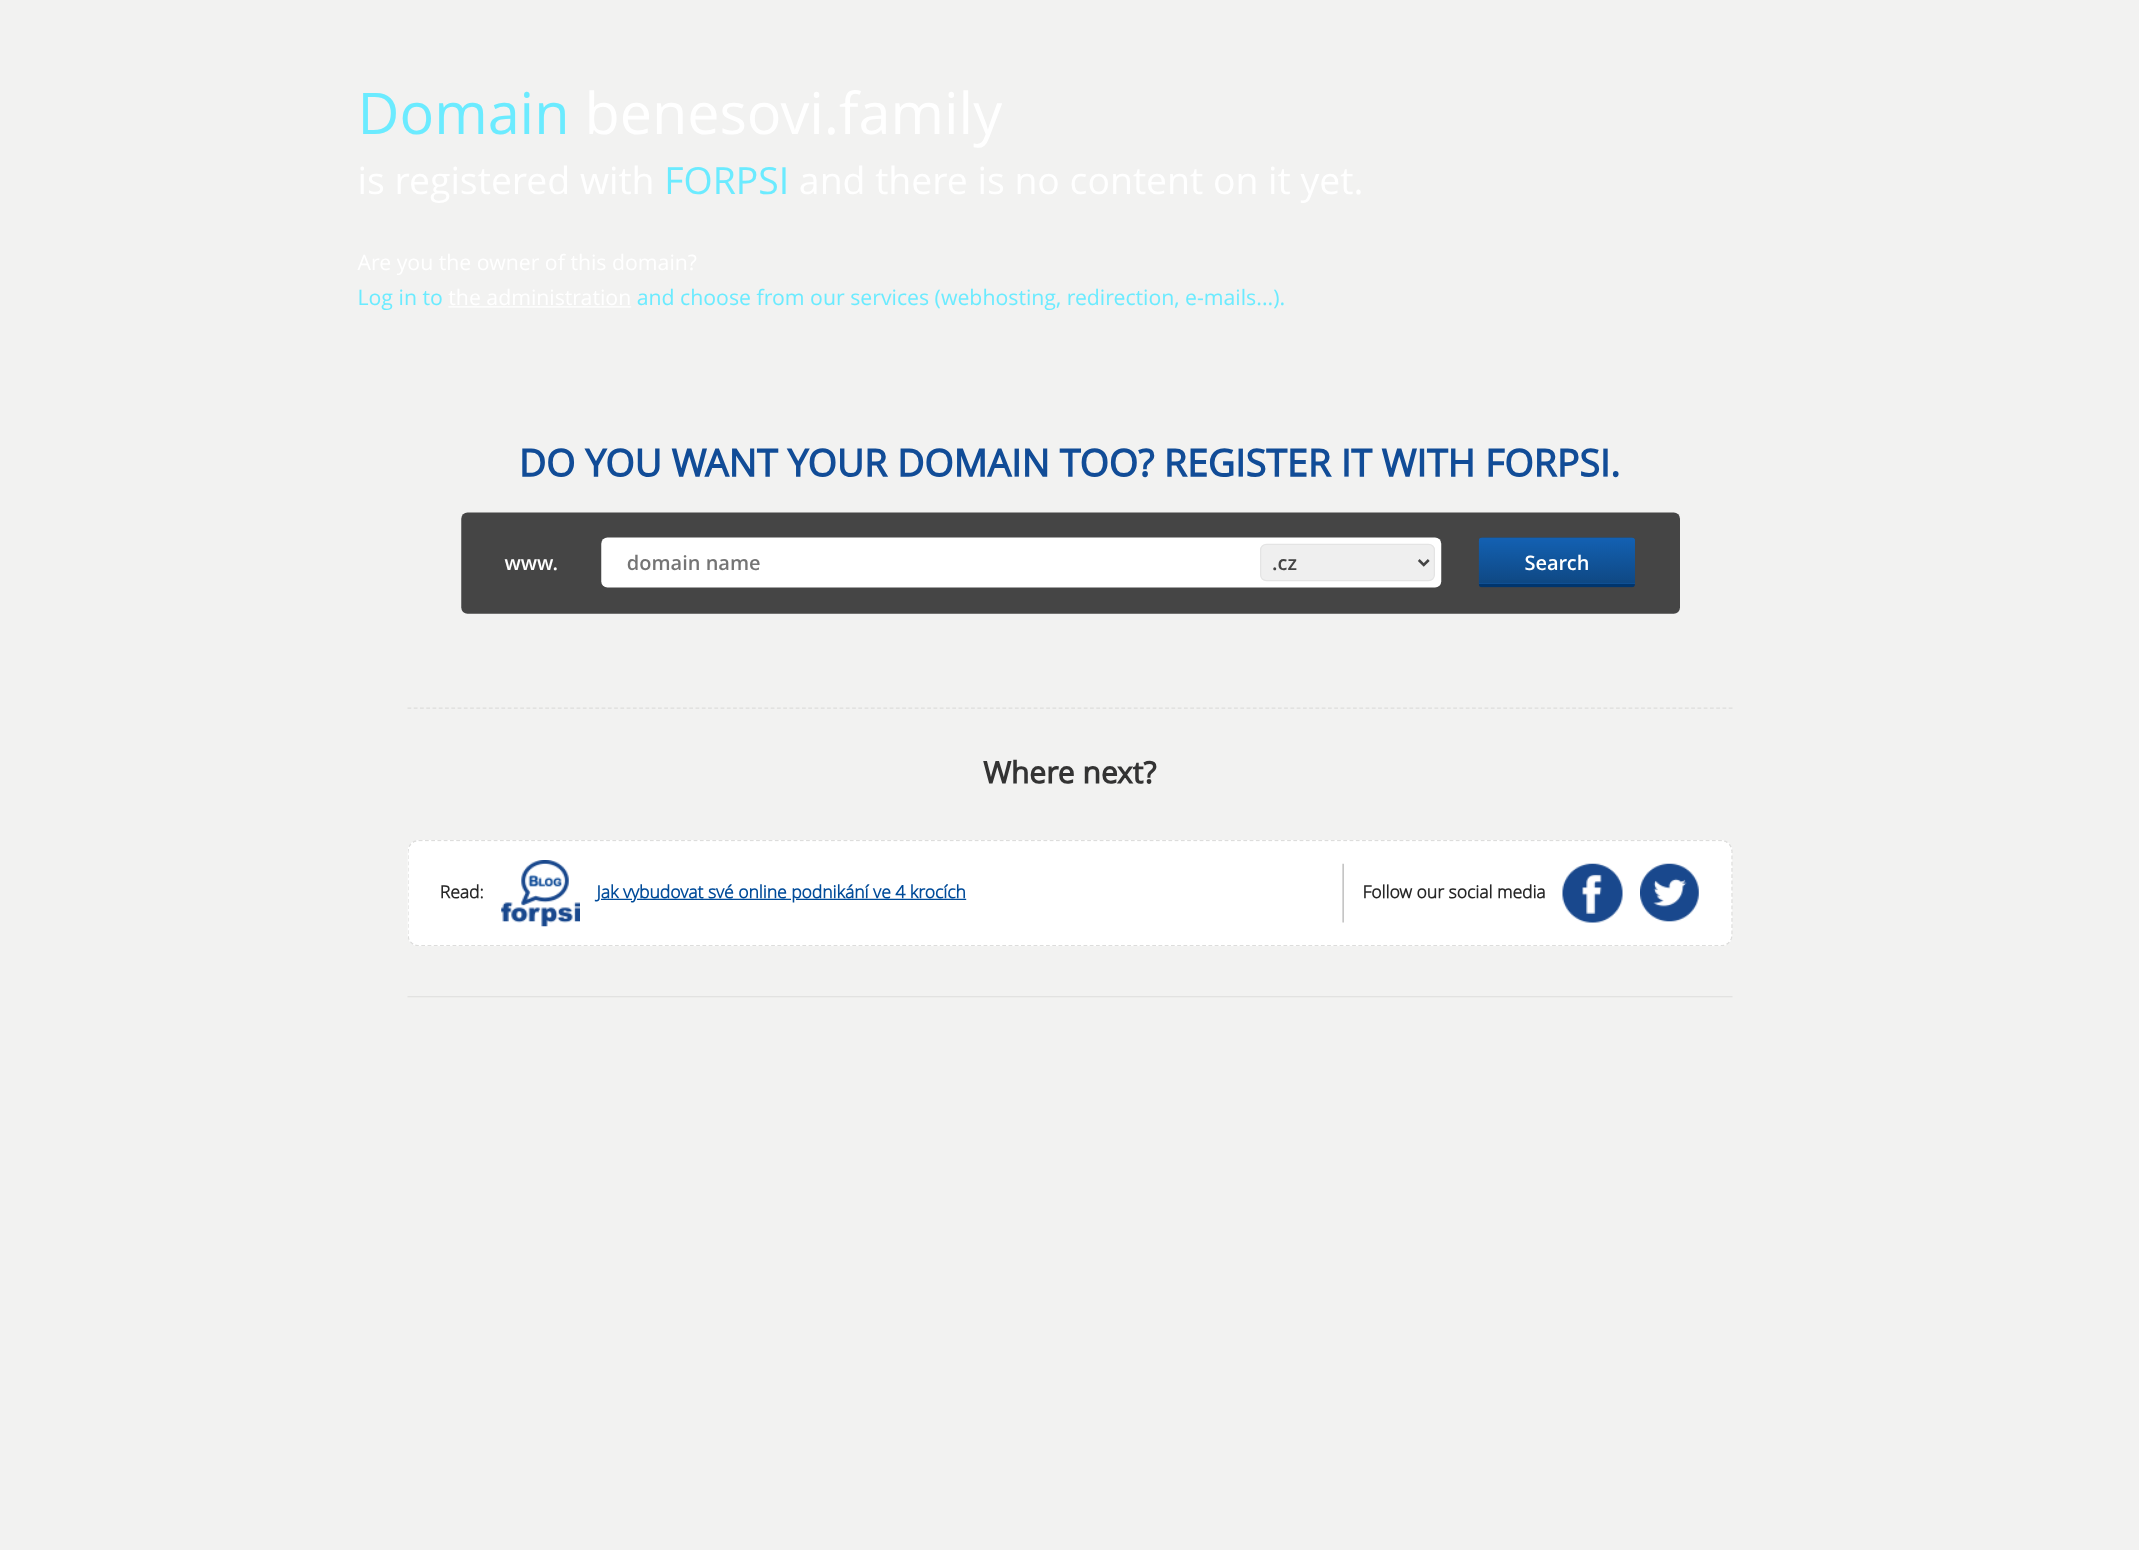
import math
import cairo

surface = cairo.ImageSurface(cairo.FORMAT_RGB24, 2139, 1550)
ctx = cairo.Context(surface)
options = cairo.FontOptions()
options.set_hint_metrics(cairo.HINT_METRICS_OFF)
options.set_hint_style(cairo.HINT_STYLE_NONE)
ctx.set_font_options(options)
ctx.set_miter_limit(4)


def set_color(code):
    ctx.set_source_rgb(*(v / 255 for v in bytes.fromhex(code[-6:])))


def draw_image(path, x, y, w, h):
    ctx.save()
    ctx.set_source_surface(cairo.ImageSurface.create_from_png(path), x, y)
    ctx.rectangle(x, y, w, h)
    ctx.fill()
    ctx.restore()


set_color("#ffffff")
ctx.paint()
draw_image("assets/img1.png", 0, 0, 2139, 1550)
surface.write_to_png("output.png")
